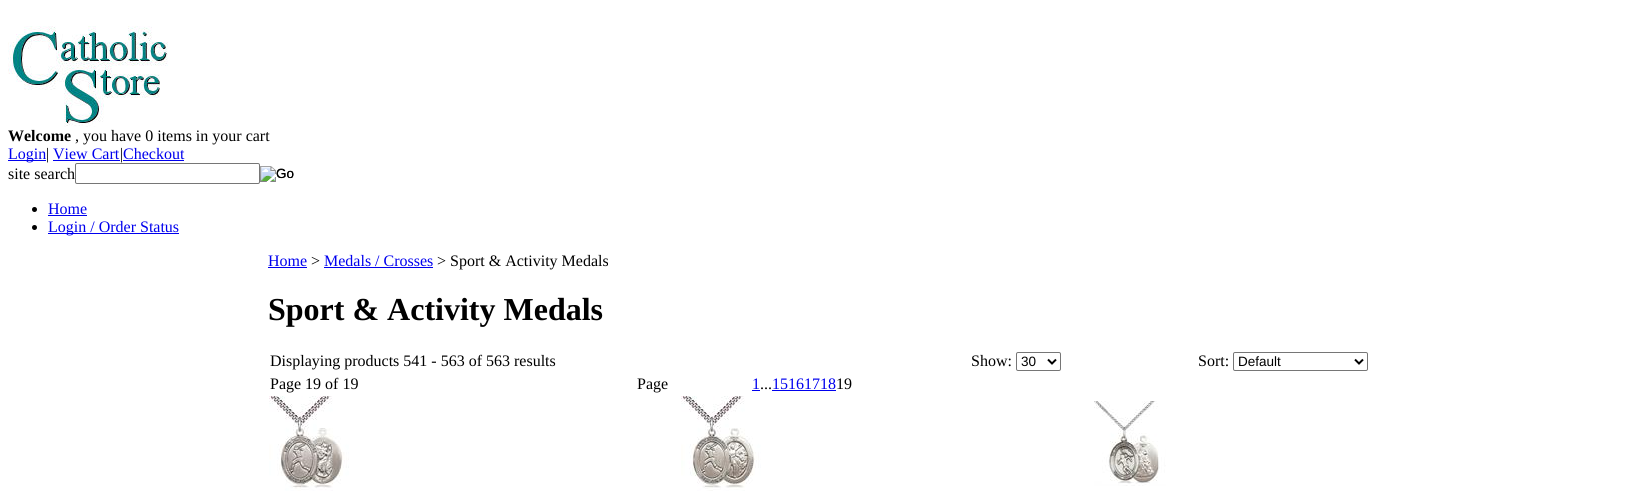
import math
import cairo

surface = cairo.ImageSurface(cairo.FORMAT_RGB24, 1627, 497)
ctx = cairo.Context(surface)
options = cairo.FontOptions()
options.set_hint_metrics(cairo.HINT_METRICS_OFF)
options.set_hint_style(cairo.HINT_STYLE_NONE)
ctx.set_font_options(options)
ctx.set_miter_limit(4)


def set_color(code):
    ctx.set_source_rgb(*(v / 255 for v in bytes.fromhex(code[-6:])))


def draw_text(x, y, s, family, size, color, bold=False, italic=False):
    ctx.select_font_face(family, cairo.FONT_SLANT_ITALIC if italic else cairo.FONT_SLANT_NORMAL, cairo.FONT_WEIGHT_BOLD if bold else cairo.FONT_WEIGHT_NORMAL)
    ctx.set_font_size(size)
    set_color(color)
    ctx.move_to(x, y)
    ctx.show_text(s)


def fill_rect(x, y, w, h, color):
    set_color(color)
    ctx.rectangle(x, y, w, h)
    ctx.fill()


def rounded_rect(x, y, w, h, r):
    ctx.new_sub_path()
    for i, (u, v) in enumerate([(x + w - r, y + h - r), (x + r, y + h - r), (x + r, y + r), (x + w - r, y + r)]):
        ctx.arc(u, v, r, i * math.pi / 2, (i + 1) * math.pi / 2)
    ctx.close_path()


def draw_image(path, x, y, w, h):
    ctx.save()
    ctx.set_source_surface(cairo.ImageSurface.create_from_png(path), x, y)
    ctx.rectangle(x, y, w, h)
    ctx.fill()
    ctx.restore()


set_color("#ffffff")
ctx.paint()
draw_image("assets/img1.png", 8, 26, 160, 101)
draw_text(8, 141, "Welcome", "Liberation Serif", 16, "#000000", bold=True)
draw_text(75, 141, ", you have 0 items in your cart", "Liberation Serif", 16, "#000000")
fill_rect(8, 160, 38, 1, "#0000ee")
draw_text(8, 159, "Login", "Liberation Serif", 16, "#0000ee")
draw_text(46, 159, "|", "Liberation Serif", 16, "#000000")
draw_text(53, 159, "View Cart", "Liberation Serif", 16, "#0000ee")
fill_rect(53, 160, 67, 1, "#0000ee")
draw_text(120, 159, "|", "Liberation Serif", 16, "#000000")
draw_text(123, 159, "Checkout", "Liberation Serif", 16, "#0000ee")
fill_rect(123, 160, 61, 1, "#0000ee")
draw_text(8, 179, "site search", "Liberation Serif", 16, "#000000")
rounded_rect(75.5, 163.5, 184, 20, 1.5)
set_color("#767676")
ctx.set_line_width(1)
ctx.stroke()
draw_image("assets/img2.png", 260, 166, 34, 16)
draw_text(276, 178, "Go", "Liberation Sans", 13.5, "#000000")
ctx.new_path()
ctx.arc(34.5, 209.5, 2.5, 0, 2 * math.pi)
ctx.fill()
draw_text(48, 214, "Home", "Liberation Serif", 16, "#0000ee")
fill_rect(48, 215, 39, 1, "#0000ee")
set_color("#000000")
ctx.new_path()
ctx.arc(34.5, 227.5, 2.5, 0, 2 * math.pi)
ctx.fill()
fill_rect(48, 233, 131, 1, "#0000ee")
draw_text(48, 232, "Login / Order Status", "Liberation Serif", 16, "#0000ee")
draw_text(268, 266, "Home", "Liberation Serif", 16, "#0000ee")
fill_rect(268, 267, 39, 1, "#0000ee")
draw_text(311, 266, ">", "Liberation Serif", 16, "#000000")
draw_text(324, 266, "Medals / Crosses", "Liberation Serif", 16, "#0000ee")
fill_rect(324, 267, 109, 1, "#0000ee")
draw_text(437, 266, "> Sport & Activity Medals", "Liberation Serif", 16, "#000000")
draw_text(268, 320, "Sport & Activity Medals", "Liberation Serif", 32, "#000000", bold=True)
draw_text(270, 366, "Displaying products 541 - 563 of 563 results", "Liberation Serif", 16, "#000000")
draw_text(971, 366, "Show:", "Liberation Serif", 16, "#000000")
rounded_rect(1016.5, 352.5, 44, 18, 1.5)
set_color("#767676")
ctx.stroke()
ctx.new_path()
ctx.move_to(1048, 359.5)
ctx.line_to(1052, 363.5)
ctx.line_to(1056, 359.5)
set_color("#000000")
ctx.set_line_width(2)
ctx.stroke()
draw_text(1021, 366, "30", "Liberation Sans", 13.5, "#000000")
draw_text(1198, 366, "Sort:", "Liberation Serif", 16, "#000000")
rounded_rect(1233.5, 352.5, 134, 18, 1.5)
set_color("#767676")
ctx.set_line_width(1)
ctx.stroke()
ctx.new_path()
ctx.move_to(1355, 359.5)
ctx.line_to(1359, 363.5)
ctx.line_to(1363, 359.5)
set_color("#000000")
ctx.set_line_width(2)
ctx.stroke()
draw_text(1238, 366, "Default", "Liberation Sans", 13.5, "#000000")
draw_text(270, 389, "Page 19 of 19", "Liberation Serif", 16, "#000000")
draw_text(637, 389, "Page", "Liberation Serif", 16, "#000000")
draw_text(752, 389, "1", "Liberation Serif", 16, "#0000ee")
fill_rect(752, 390, 8, 1, "#0000ee")
draw_text(760, 389, "...", "Liberation Serif", 16, "#000000")
draw_text(772, 389, "15161718", "Liberation Serif", 16, "#0000ee")
fill_rect(772, 390, 64, 1, "#0000ee")
draw_text(836, 389, "19", "Liberation Serif", 16, "#000000")
draw_image("assets/img3.png", 269, 396, 80, 95)
draw_image("assets/img4.png", 681, 396, 80, 95)
draw_image("assets/img5.png", 1094, 401, 72, 85)
surface.write_to_png("output.png")
